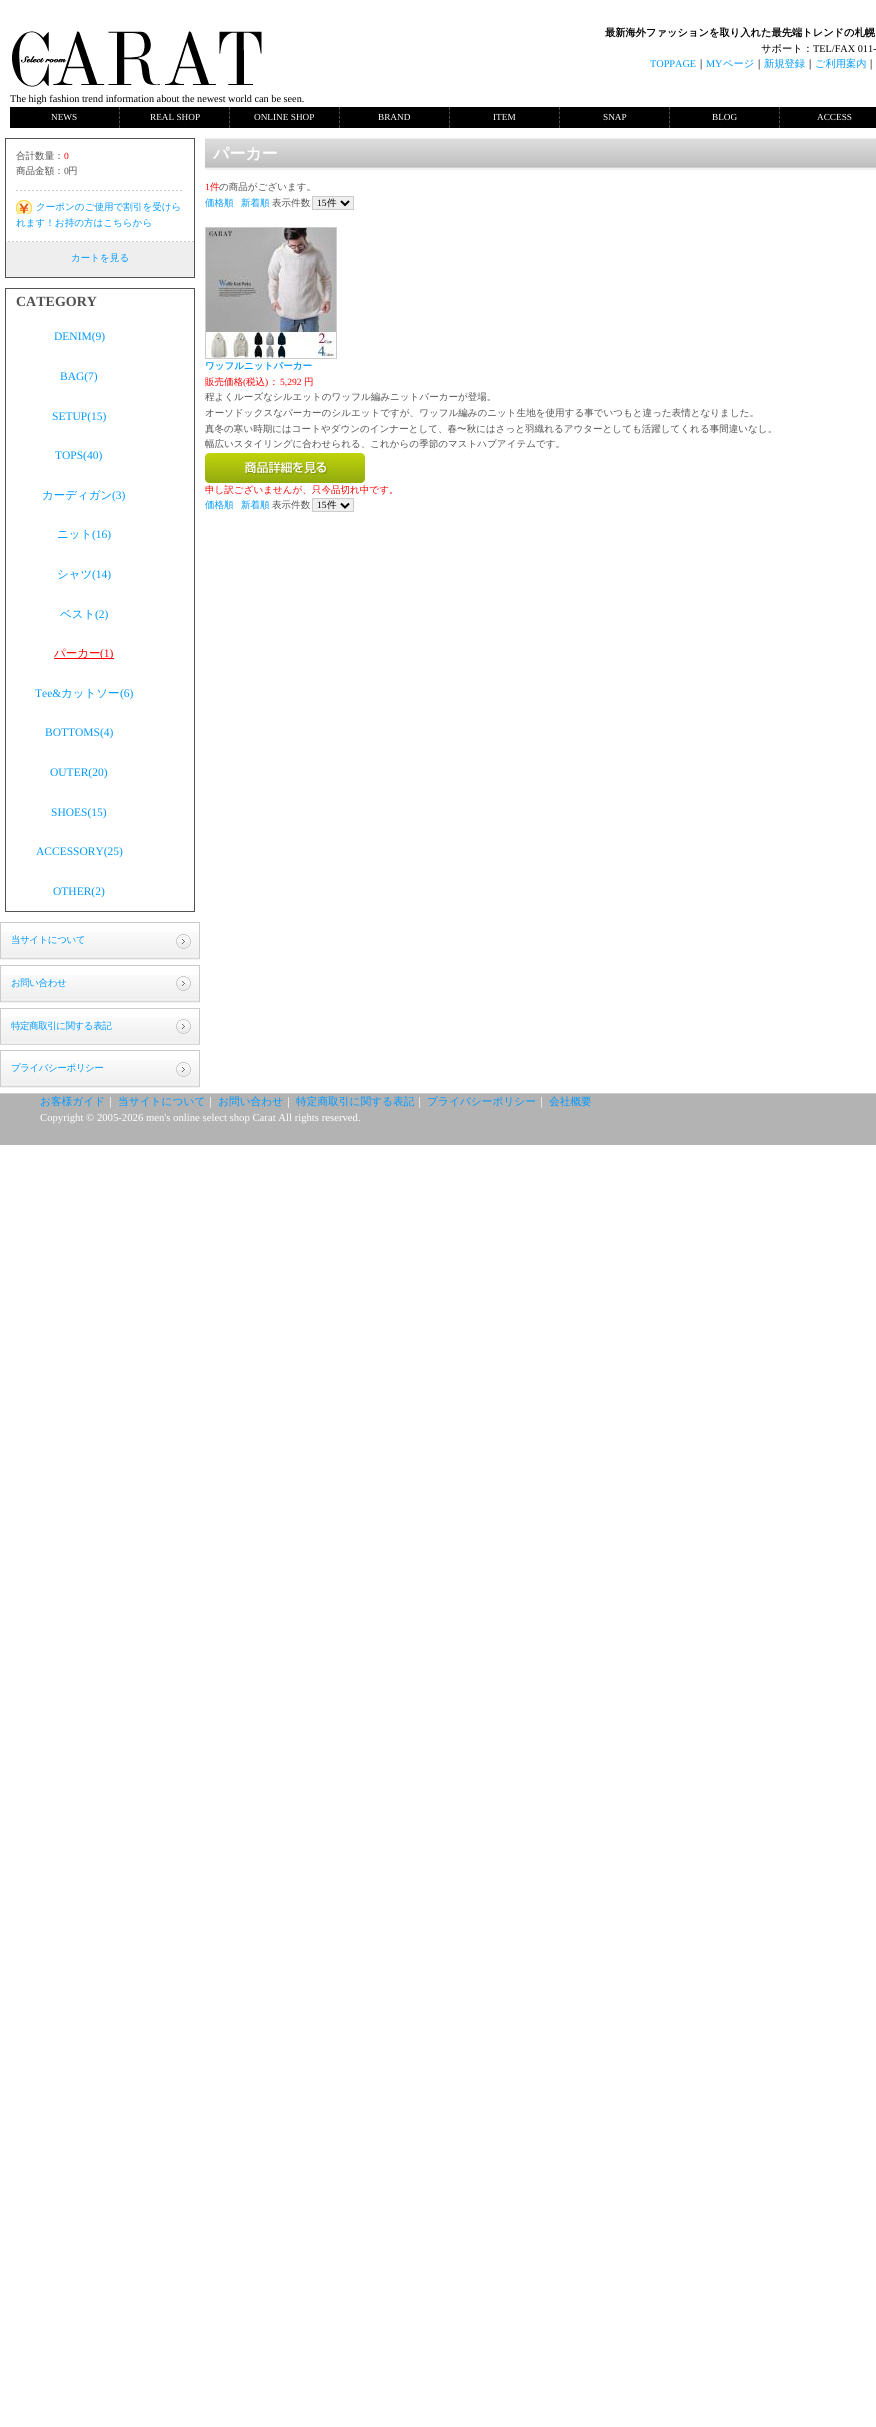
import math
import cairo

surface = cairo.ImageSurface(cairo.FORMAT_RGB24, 876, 2427)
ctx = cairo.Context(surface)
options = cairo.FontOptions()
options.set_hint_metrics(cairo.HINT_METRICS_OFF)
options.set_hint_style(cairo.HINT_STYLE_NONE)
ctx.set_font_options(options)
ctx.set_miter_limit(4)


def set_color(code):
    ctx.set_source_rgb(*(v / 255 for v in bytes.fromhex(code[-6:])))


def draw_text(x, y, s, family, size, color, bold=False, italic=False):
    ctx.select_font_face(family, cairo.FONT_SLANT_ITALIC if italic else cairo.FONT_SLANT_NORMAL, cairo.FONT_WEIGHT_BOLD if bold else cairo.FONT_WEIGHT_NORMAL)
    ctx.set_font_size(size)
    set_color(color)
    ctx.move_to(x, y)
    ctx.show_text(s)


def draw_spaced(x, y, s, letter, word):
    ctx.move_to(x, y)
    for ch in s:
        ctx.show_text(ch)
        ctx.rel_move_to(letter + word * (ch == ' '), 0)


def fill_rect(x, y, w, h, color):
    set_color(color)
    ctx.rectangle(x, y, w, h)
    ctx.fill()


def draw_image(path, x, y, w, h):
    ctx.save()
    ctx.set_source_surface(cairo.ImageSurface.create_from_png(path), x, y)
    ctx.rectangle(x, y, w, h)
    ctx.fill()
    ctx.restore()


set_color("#ffffff")
ctx.paint()
draw_text(605, 36, "最新海外ファッションを取り入れた最先端トレンドの札幌", "WenQuanYi Zen Hei", 10.25, "#000000", bold=True)
draw_text(761, 52, "サポート：", "WenQuanYi Zen Hei Medium", 10.25, "#000000")
draw_text(813, 52, "TEL/FAX 011-", "Liberation Serif", 10.25, "#000000")
draw_text(650, 67, "TOPPAGE", "Liberation Serif", 10.25, "#0099ff")
draw_text(696, 67, "｜", "WenQuanYi Zen Hei Medium", 10.25, "#000000")
draw_text(706, 67, "MY", "Liberation Serif", 10.25, "#0099ff")
draw_text(723, 67, "ページ", "WenQuanYi Zen Hei Medium", 10.25, "#0099ff")
draw_text(754, 67, "｜", "WenQuanYi Zen Hei Medium", 10.25, "#000000")
draw_text(764, 67, "新規登録", "WenQuanYi Zen Hei Medium", 10.25, "#0099ff")
draw_text(805, 67, "｜", "WenQuanYi Zen Hei Medium", 10.25, "#000000")
draw_text(815, 67, "ご利用案内", "WenQuanYi Zen Hei Medium", 10.25, "#0099ff")
draw_text(866, 67, "｜", "WenQuanYi Zen Hei Medium", 10.25, "#000000")
draw_image("assets/img1.png", 12, 31, 250, 56)
draw_text(10, 102, "The high fashion trend information about the newest world can be seen.", "Liberation Serif", 10.25, "#000000")
fill_rect(10, 107, 866, 21, "#000000")
ctx.new_path()
ctx.move_to(119.5, 107)
ctx.line_to(119.5, 128)
set_color("#4b4a4a")
ctx.set_line_width(1)
ctx.set_dash([3, 1.5])
ctx.stroke()
draw_text(51, 120, "NEWS", "Liberation Serif", 9.25, "#ffffff")
ctx.new_path()
ctx.move_to(229.5, 107)
ctx.line_to(229.5, 128)
set_color("#4b4a4a")
ctx.stroke()
draw_text(150, 120, "REAL SHOP", "Liberation Serif", 9.25, "#ffffff")
ctx.new_path()
ctx.move_to(339.5, 107)
ctx.line_to(339.5, 128)
set_color("#4b4a4a")
ctx.stroke()
draw_text(254, 120, "ONLINE SHOP", "Liberation Serif", 9.25, "#ffffff")
ctx.new_path()
ctx.move_to(449.5, 107)
ctx.line_to(449.5, 128)
set_color("#4b4a4a")
ctx.stroke()
draw_text(378, 120, "BRAND", "Liberation Serif", 9.25, "#ffffff")
ctx.new_path()
ctx.move_to(559.5, 107)
ctx.line_to(559.5, 128)
set_color("#4b4a4a")
ctx.stroke()
draw_text(493, 120, "ITEM", "Liberation Serif", 9.25, "#ffffff")
ctx.new_path()
ctx.move_to(669.5, 107)
ctx.line_to(669.5, 128)
set_color("#4b4a4a")
ctx.stroke()
draw_text(603, 120, "SNAP", "Liberation Serif", 9.25, "#ffffff")
ctx.new_path()
ctx.move_to(779.5, 107)
ctx.line_to(779.5, 128)
set_color("#4b4a4a")
ctx.stroke()
draw_text(712, 120, "BLOG", "Liberation Serif", 9.25, "#ffffff")
draw_text(817, 120, "ACCESS", "Liberation Serif", 9.25, "#ffffff")
ctx.rectangle(5.5, 138.5, 189, 139)
set_color("#515151")
ctx.set_dash([])
ctx.stroke()
draw_text(16, 159, "合計数量：", "WenQuanYi Zen Hei Medium", 9.55, "#515151")
draw_text(64, 159, "0", "Liberation Serif", 9.55, "#ff0000")
draw_text(16, 174, "商品金額：", "WenQuanYi Zen Hei Medium", 9.55, "#515151")
draw_text(64, 174, "0", "Liberation Serif", 9.55, "#515151")
draw_text(68, 174, "円", "WenQuanYi Zen Hei Medium", 9.55, "#515151")
draw_image("assets/img2.png", 16, 190, 166, 1)
draw_image("assets/img3.png", 16, 200, 16, 14)
draw_text(36, 210, "クーポンのご使用で割引を受けら", "WenQuanYi Zen Hei Medium", 9.55, "#0099ff")
draw_text(16, 226, "れます！お持の方はこちらから", "WenQuanYi Zen Hei Medium", 9.55, "#0099ff")
fill_rect(6, 242, 188, 35, "#eeeeee")
draw_image("assets/img4.png", 6, 241, 188, 1)
draw_text(71, 261, "カートを見る", "WenQuanYi Zen Hei Medium", 9.55, "#0099ff")
ctx.rectangle(5.5, 288.5, 189, 623)
set_color("#515151")
ctx.stroke()
draw_text(16, 306, "CATEGORY", "Liberation Serif", 14, "#515151", bold=True)
draw_text(54, 340, "DENIM(9)", "Liberation Serif", 11.5, "#0099ff")
draw_text(60, 380, "BAG(7)", "Liberation Serif", 11.5, "#0099ff")
draw_text(52, 420, "SETUP(15)", "Liberation Serif", 11.5, "#0099ff")
draw_text(55, 459, "TOPS(40)", "Liberation Serif", 11.5, "#0099ff")
draw_text(42, 499, "カーディガン", "WenQuanYi Zen Hei Medium", 11.5, "#0099ff")
draw_text(112, 499, "(3)", "Liberation Serif", 11.5, "#0099ff")
draw_text(57, 538, "ニット", "WenQuanYi Zen Hei Medium", 11.5, "#0099ff")
draw_text(92, 538, "(16)", "Liberation Serif", 11.5, "#0099ff")
draw_text(57, 578, "シャツ", "WenQuanYi Zen Hei Medium", 11.5, "#0099ff")
draw_text(92, 578, "(14)", "Liberation Serif", 11.5, "#0099ff")
draw_text(60, 618, "ベスト", "WenQuanYi Zen Hei Medium", 11.5, "#0099ff")
draw_text(95, 618, "(2)", "Liberation Serif", 11.5, "#0099ff")
fill_rect(54, 658, 60, 1, "#ff0000")
draw_text(54, 657, "パーカー", "WenQuanYi Zen Hei Medium", 11.5, "#ff0000")
draw_text(100, 657, "(1)", "Liberation Serif", 11.5, "#ff0000")
draw_text(35, 697, "Tee&", "Liberation Serif", 11.5, "#0099ff")
draw_text(61, 697, "カットソー", "WenQuanYi Zen Hei Medium", 11.5, "#0099ff")
draw_text(120, 697, "(6)", "Liberation Serif", 11.5, "#0099ff")
draw_text(45, 736, "BOTTOMS(4)", "Liberation Serif", 11.5, "#0099ff")
draw_text(50, 776, "OUTER(20)", "Liberation Serif", 11.5, "#0099ff")
draw_text(51, 816, "SHOES(15)", "Liberation Serif", 11.5, "#0099ff")
draw_text(36, 855, "ACCESSORY(25)", "Liberation Serif", 11.5, "#0099ff")
draw_text(53, 895, "OTHER(2)", "Liberation Serif", 11.5, "#0099ff")
draw_image("assets/img5.png", 0, 932, 200, 28)
draw_image("assets/img6.png", 176, 934, 15, 15)
fill_rect(0, 922, 200, 1, "#cccccc")
fill_rect(199, 922, 1, 37, "#cccccc")
fill_rect(0, 922, 1, 37, "#cccccc")
ctx.select_font_face("WenQuanYi Zen Hei Medium")
ctx.set_font_size(9.55)
set_color("#0099ff")
draw_spaced(11, 943, "当サイトについて", -0.5, 0)
draw_image("assets/img5.png", 0, 975, 200, 28)
draw_image("assets/img7.png", 176, 976, 15, 15)
fill_rect(0, 965, 200, 1, "#cccccc")
fill_rect(199, 965, 1, 37, "#cccccc")
fill_rect(0, 965, 1, 37, "#cccccc")
set_color("#0099ff")
draw_spaced(11, 986, "お問い合わせ", -0.5, 0)
draw_image("assets/img8.png", 0, 1017, 200, 28)
draw_image("assets/img6.png", 176, 1019, 15, 15)
fill_rect(0, 1008, 200, 1, "#cccccc")
fill_rect(199, 1008, 1, 36, "#cccccc")
fill_rect(0, 1008, 1, 36, "#cccccc")
set_color("#0099ff")
draw_spaced(11, 1029, "特定商取引に関する表記", -0.5, 0)
draw_image("assets/img5.png", 0, 1060, 200, 28)
draw_image("assets/img6.png", 176, 1062, 15, 15)
fill_rect(0, 1050, 200, 1, "#cccccc")
fill_rect(199, 1050, 1, 37, "#cccccc")
fill_rect(0, 1050, 1, 37, "#cccccc")
set_color("#0099ff")
draw_spaced(11, 1071, "プライバシーポリシー", -0.5, 0)
draw_image("assets/img9.png", 205, 139, 671, 31)
fill_rect(205, 138, 671, 1, "#ebeced")
draw_text(213, 159, "パーカー", "WenQuanYi Zen Hei", 16, "#ffffff", bold=True)
draw_text(205, 190, "1", "Liberation Serif", 9.55, "#ff0000")
draw_text(210, 190, "件", "WenQuanYi Zen Hei Medium", 9.55, "#ff0000")
draw_text(219, 190, "の商品がございます。", "WenQuanYi Zen Hei Medium", 9.55, "#515151")
draw_text(205, 206, "価格順", "WenQuanYi Zen Hei Medium", 9.55, "#0099ff")
draw_text(241, 206, "新着順", "WenQuanYi Zen Hei Medium", 9.55, "#0099ff")
draw_text(272, 206, "表示件数", "WenQuanYi Zen Hei Medium", 9.55, "#515151")
set_color("#efefef")
ctx.rectangle(312.5, 196.5, 41, 13)
ctx.fill_preserve()
set_color("#cccccc")
ctx.stroke()
ctx.new_path()
ctx.move_to(341, 201)
ctx.line_to(345, 205)
ctx.line_to(349, 201)
set_color("#000000")
ctx.set_line_width(2)
ctx.stroke()
draw_text(317, 206, "15", "Liberation Serif", 9.55, "#000000")
draw_text(327, 206, "件", "WenQuanYi Zen Hei Medium", 9.55, "#000000")
ctx.rectangle(205.5, 227.5, 131, 131)
set_color("#cccccc")
ctx.set_line_width(1)
ctx.stroke()
draw_image("assets/img10.png", 206, 228, 130, 130)
draw_text(205, 369, "ワッフルニットパーカー", "WenQuanYi Zen Hei", 9.55, "#0099ff", bold=True)
draw_text(205, 385, "販売価格", "WenQuanYi Zen Hei Medium", 9.55, "#ff0000")
draw_text(243, 385, "(", "Liberation Serif", 9.55, "#ff0000")
draw_text(246, 385, "税込", "WenQuanYi Zen Hei Medium", 9.55, "#ff0000")
draw_text(265, 385, ")", "Liberation Serif", 9.55, "#ff0000")
draw_text(269, 385, "：", "WenQuanYi Zen Hei Medium", 9.55, "#ff0000")
draw_text(280, 385, "5,292", "Liberation Serif", 9.55, "#ff0000")
draw_text(304, 385, "円", "WenQuanYi Zen Hei Medium", 9.55, "#ff0000")
draw_text(205, 400, "程よくルーズなシルエットのワッフル編みニットパーカーが登場。", "WenQuanYi Zen Hei Medium", 9.55, "#515151")
draw_text(205, 416, "オーソドックスなパーカーのシルエットですが、ワッフル編みのニット生地を使用する事でいつもと違った表情となりました。", "WenQuanYi Zen Hei Medium", 9.55, "#515151")
draw_text(205, 432, "真冬の寒い時期にはコートやダウンのインナーとして、春〜秋にはさっと羽織れるアウターとしても活躍してくれる事間違いなし。", "WenQuanYi Zen Hei Medium", 9.55, "#515151")
draw_text(205, 447, "幅広いスタイリングに合わせられる、これからの季節のマストハブアイテムです。", "WenQuanYi Zen Hei Medium", 9.55, "#515151")
draw_image("assets/img11.png", 205, 453, 160, 30)
draw_text(205, 493, "申し訳ございませんが、只今品切れ中です。", "WenQuanYi Zen Hei Medium", 9.55, "#ff0000")
draw_text(205, 508, "価格順", "WenQuanYi Zen Hei Medium", 9.55, "#0099ff")
draw_text(241, 508, "新着順", "WenQuanYi Zen Hei Medium", 9.55, "#0099ff")
draw_text(272, 508, "表示件数", "WenQuanYi Zen Hei Medium", 9.55, "#515151")
set_color("#efefef")
ctx.rectangle(312.5, 498.5, 41, 13)
ctx.fill_preserve()
set_color("#cccccc")
ctx.stroke()
ctx.new_path()
ctx.move_to(341, 503.5)
ctx.line_to(345, 507.5)
ctx.line_to(349, 503.5)
set_color("#000000")
ctx.set_line_width(2)
ctx.stroke()
draw_text(317, 508, "15", "Liberation Serif", 9.55, "#000000")
draw_text(327, 508, "件", "WenQuanYi Zen Hei Medium", 9.55, "#000000")
fill_rect(0, 1094, 876, 51, "#b3b3b3")
fill_rect(0, 1093, 876, 1, "#cccccc")
draw_text(40, 1105, "お客様ガイド", "WenQuanYi Zen Hei Medium", 10.7, "#0099ff")
draw_text(105, 1105, "｜", "WenQuanYi Zen Hei Medium", 10.7, "#ffffff")
draw_text(118, 1105, "当サイトについて", "WenQuanYi Zen Hei Medium", 10.7, "#0099ff")
draw_text(205, 1105, "｜", "WenQuanYi Zen Hei Medium", 10.7, "#ffffff")
draw_text(218, 1105, "お問い合わせ", "WenQuanYi Zen Hei Medium", 10.7, "#0099ff")
draw_text(283, 1105, "｜", "WenQuanYi Zen Hei Medium", 10.7, "#ffffff")
draw_text(296, 1105, "特定商取引に関する表記", "WenQuanYi Zen Hei Medium", 10.7, "#0099ff")
draw_text(414, 1105, "｜", "WenQuanYi Zen Hei Medium", 10.7, "#ffffff")
draw_text(427, 1105, "プライバシーポリシー", "WenQuanYi Zen Hei Medium", 10.7, "#0099ff")
draw_text(536, 1105, "｜", "WenQuanYi Zen Hei Medium", 10.7, "#ffffff")
draw_text(549, 1105, "会社概要", "WenQuanYi Zen Hei Medium", 10.7, "#0099ff")
draw_text(40, 1121, "Copyright © 2005-2026 men's online select shop Carat All rights reserved.", "Liberation Serif", 10.7, "#ffffff")
surface.write_to_png("output.png")
